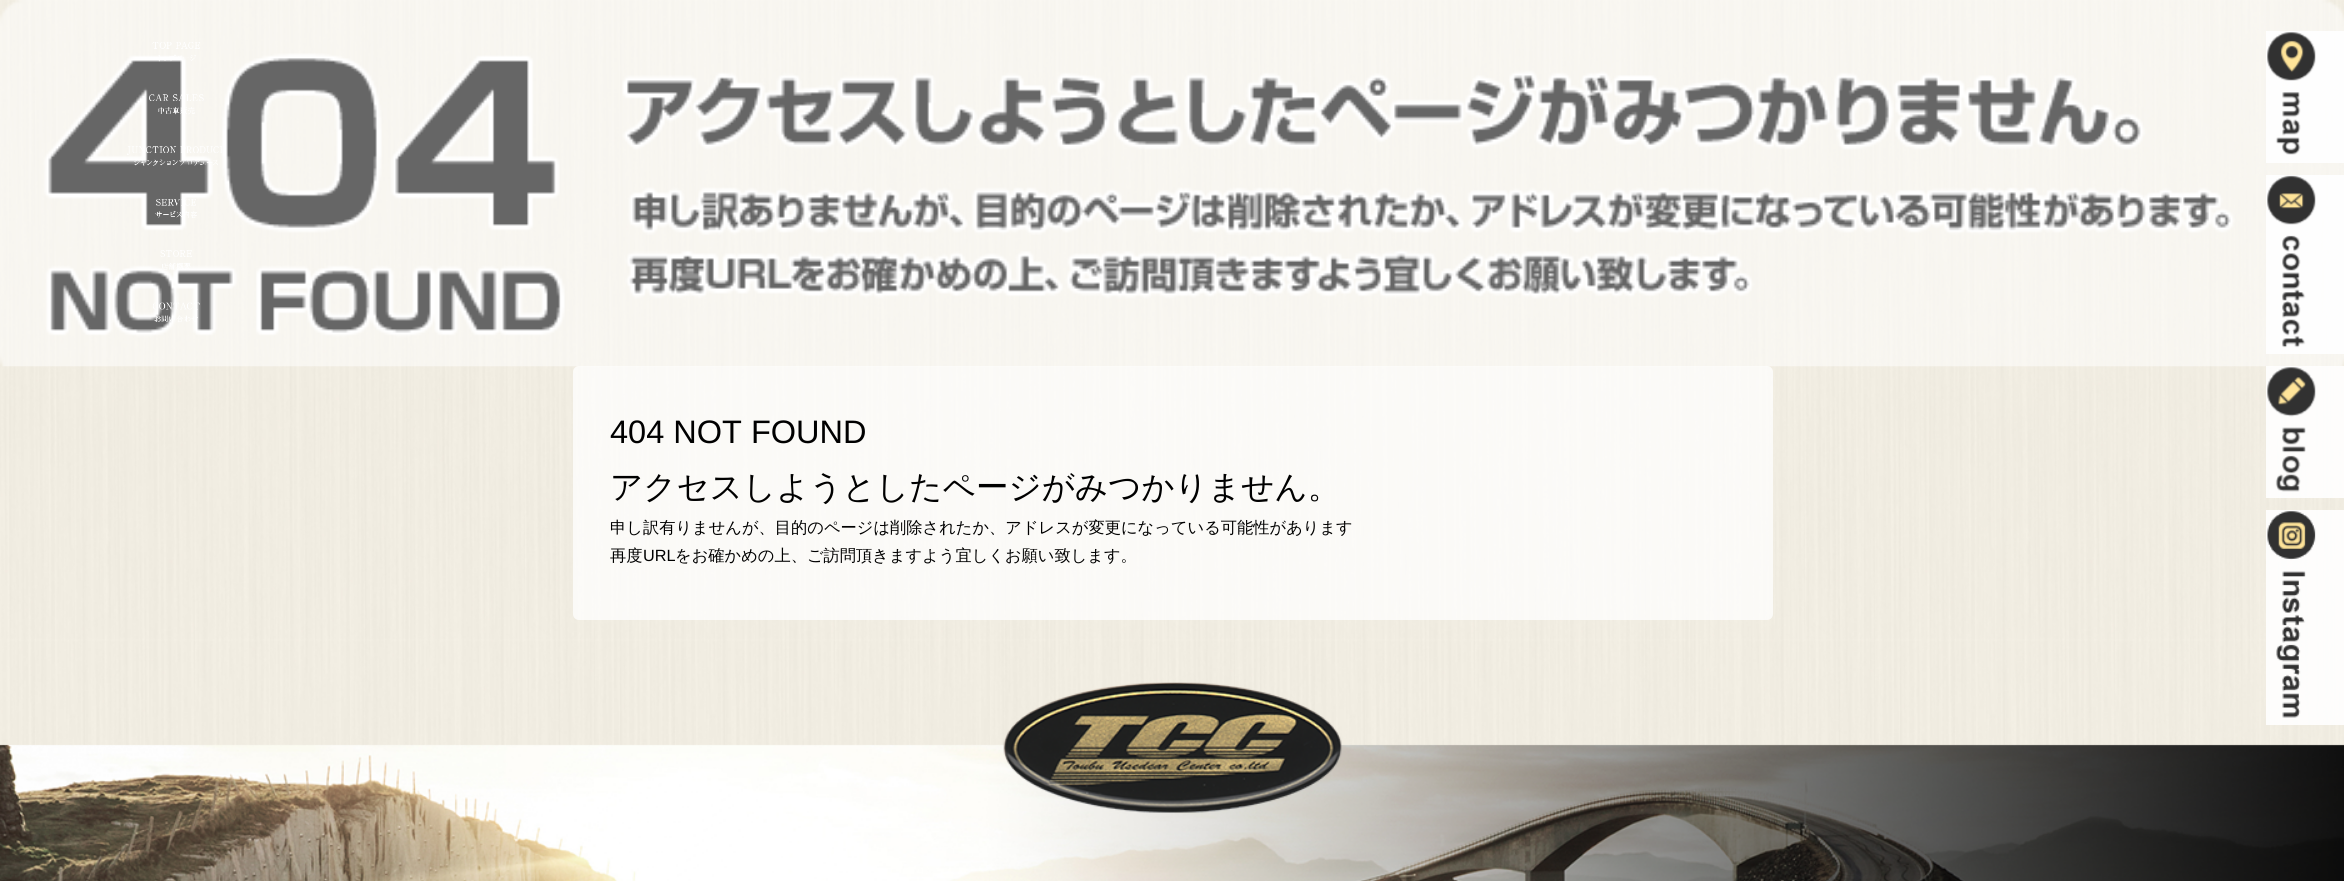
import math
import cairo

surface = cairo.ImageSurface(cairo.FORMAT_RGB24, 2344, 881)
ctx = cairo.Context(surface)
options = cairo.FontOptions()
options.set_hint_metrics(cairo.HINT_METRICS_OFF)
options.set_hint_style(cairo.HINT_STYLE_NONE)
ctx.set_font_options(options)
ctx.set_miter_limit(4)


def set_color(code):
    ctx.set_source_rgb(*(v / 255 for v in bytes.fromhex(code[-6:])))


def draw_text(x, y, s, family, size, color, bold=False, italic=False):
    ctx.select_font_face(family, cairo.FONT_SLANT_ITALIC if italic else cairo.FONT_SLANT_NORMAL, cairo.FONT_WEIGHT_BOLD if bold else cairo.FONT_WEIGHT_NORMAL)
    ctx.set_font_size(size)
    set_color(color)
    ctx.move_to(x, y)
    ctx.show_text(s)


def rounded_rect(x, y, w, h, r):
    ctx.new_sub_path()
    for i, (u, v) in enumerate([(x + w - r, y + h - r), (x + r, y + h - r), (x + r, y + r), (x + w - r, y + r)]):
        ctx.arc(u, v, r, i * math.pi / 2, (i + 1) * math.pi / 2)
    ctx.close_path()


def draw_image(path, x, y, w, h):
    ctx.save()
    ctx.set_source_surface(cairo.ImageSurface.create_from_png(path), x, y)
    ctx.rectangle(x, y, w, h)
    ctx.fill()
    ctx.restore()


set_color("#ffffff")
ctx.paint()
draw_image("assets/img1.png", 0, 0, 2344, 746)
ctx.set_source_rgba(1, 1, 1, 0.75)
rounded_rect(573, 366, 1200, 254, 6)
ctx.fill()
draw_image("assets/img2.png", 0, 0, 2344, 367)
draw_image("assets/img3.png", 0, 744, 2344, 137)
draw_image("assets/img4.png", 1003, 682, 339, 131)
ctx.set_source_rgba(1, 1, 1, 0.9)
ctx.rectangle(2266, 31, 78, 132)
ctx.fill()
draw_image("assets/img5.png", 2267, 32, 49, 123)
ctx.rectangle(2266, 175, 78, 179)
ctx.fill()
draw_image("assets/img6.png", 2267, 175, 49, 173)
ctx.rectangle(2266, 366, 78, 132)
ctx.fill()
draw_image("assets/img7.png", 2267, 367, 49, 125)
ctx.rectangle(2266, 510, 78, 215)
ctx.fill()
draw_image("assets/img8.png", 2267, 511, 49, 207)
draw_image("assets/img9.png", 152, 42, 48, 20)
draw_image("assets/img10.png", 149, 94, 55, 21)
draw_image("assets/img11.png", 127, 146, 95, 20)
draw_image("assets/img12.png", 155, 198, 42, 20)
draw_image("assets/img13.png", 160, 250, 32, 20)
draw_image("assets/img14.png", 153, 302, 47, 20)
draw_text(610, 443, "404 NOT FOUND", "Liberation Sans", 32.5, "#000000")
draw_text(610, 498, "アクセスしようとしたページがみつかりません。", "WenQuanYi Zen Hei Medium", 32.5, "#000000")
draw_text(610, 533, "申し訳有りませんが、目的のページは削除されたか、アドレスが変更になっている可能性があります", "WenQuanYi Zen Hei Medium", 16.25, "#000000")
draw_text(610, 561, "再度", "WenQuanYi Zen Hei Medium", 16.25, "#000000")
draw_text(643, 561, "URL", "Liberation Sans", 16.25, "#000000")
draw_text(675, 561, "をお確かめの上、ご訪問頂きますよう宜しくお願い致します。", "WenQuanYi Zen Hei Medium", 16.25, "#000000")
surface.write_to_png("output.png")
